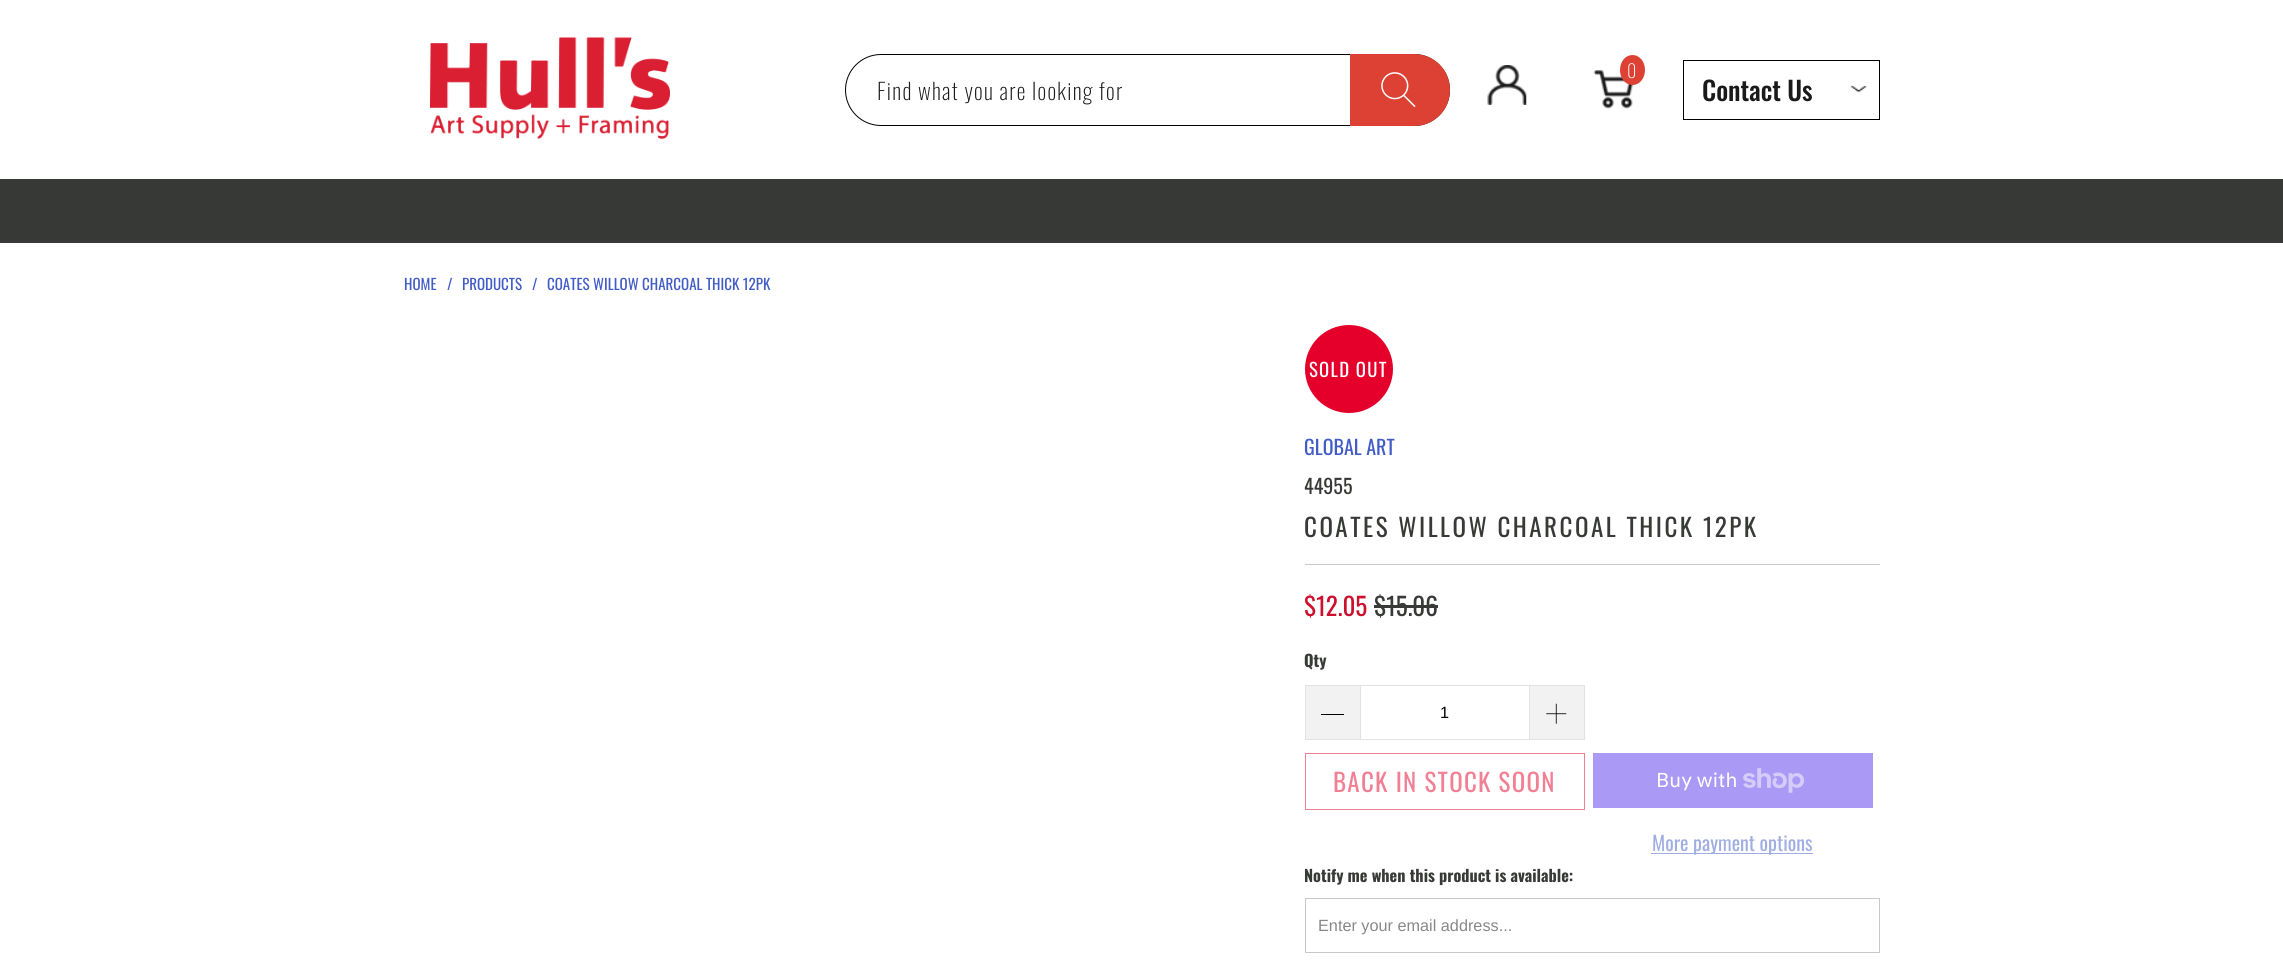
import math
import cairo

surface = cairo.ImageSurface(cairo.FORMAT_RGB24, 2283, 970)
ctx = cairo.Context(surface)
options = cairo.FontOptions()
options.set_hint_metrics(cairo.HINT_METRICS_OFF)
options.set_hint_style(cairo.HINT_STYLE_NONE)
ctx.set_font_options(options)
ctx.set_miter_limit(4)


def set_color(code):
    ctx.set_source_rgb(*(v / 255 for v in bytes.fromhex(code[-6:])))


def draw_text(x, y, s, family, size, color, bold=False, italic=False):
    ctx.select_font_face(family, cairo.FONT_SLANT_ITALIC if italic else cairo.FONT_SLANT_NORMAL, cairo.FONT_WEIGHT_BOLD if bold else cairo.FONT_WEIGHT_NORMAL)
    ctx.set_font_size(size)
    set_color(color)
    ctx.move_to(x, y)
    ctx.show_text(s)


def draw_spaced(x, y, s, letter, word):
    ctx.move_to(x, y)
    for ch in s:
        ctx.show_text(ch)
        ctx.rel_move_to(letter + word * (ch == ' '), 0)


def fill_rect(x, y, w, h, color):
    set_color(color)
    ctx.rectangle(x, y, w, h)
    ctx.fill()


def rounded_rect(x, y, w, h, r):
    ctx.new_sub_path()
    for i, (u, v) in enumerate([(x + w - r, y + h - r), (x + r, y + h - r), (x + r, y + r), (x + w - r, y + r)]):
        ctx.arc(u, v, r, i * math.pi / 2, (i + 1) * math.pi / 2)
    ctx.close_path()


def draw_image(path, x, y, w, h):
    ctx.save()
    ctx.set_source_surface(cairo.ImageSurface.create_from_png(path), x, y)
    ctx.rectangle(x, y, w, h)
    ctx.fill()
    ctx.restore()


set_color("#ffffff")
ctx.paint()
draw_image("assets/img1.png", 430, 37, 240, 102)
rounded_rect(845.5, 54.5, 604, 71, 35.5)
set_color("#000000")
ctx.set_line_width(1)
ctx.stroke()
ctx.select_font_face("Oswald ExtraLight")
ctx.set_font_size(22.5)
set_color("#1a1a1a")
draw_spaced(877, 100, "Find what you are looking for", 1.25, 0)
set_color("#dc4133")
ctx.new_path()
ctx.move_to(1350, 54)
ctx.line_to(1414, 54)
ctx.curve_to(1434, 54, 1450, 70, 1450, 90)
ctx.curve_to(1450, 110, 1434, 126, 1414, 126)
ctx.line_to(1350, 126)
ctx.close_path()
ctx.fill()
draw_image("assets/img2.png", 1381, 72, 35, 36)
draw_image("assets/img3.png", 1487, 65, 40, 40)
draw_image("assets/img4.png", 1593, 70, 41, 39)
ctx.new_path()
ctx.move_to(1632.5, 55)
ctx.curve_to(1639.5, 55, 1645, 61.5, 1645, 70)
ctx.curve_to(1645, 78.5, 1639.5, 85, 1632.5, 85)
ctx.curve_to(1625.5, 85, 1620, 78.5, 1620, 70)
ctx.curve_to(1620, 61.5, 1625.5, 55, 1632.5, 55)
ctx.close_path()
ctx.fill()
draw_text(1627, 78, "0", "Oswald ExtraLight", 18, "#ffffff")
ctx.rectangle(1683.5, 60.5, 196, 59)
set_color("#000000")
ctx.stroke()
draw_text(1702, 101, "Contact Us", "Oswald Medium", 26.25, "#1a1a1a")
draw_image("assets/img5.png", 1850, 85, 18, 8)
fill_rect(0, 179, 2283, 64, "#373936")
draw_text(404, 290, "HOME", "Oswald", 15, "#425cc7")
draw_text(447, 290, "/", "Oswald", 15, "#425cc7")
draw_text(462, 290, "PRODUCTS", "Oswald", 15, "#425cc7")
draw_text(532, 290, "/", "Oswald", 15, "#425cc7")
draw_text(547, 290, "COATES WILLOW CHARCOAL THICK 12PK", "Oswald", 15, "#425cc7")
set_color("#e4002b")
ctx.new_path()
ctx.arc(1349, 369, 44, 0, 2 * math.pi)
ctx.fill()
ctx.set_font_size(18.75)
set_color("#ffffff")
draw_spaced(1309, 377, "SOLD OUT", 1.25, 0)
draw_text(1304, 455, "GLOBAL ART", "Oswald", 20, "#425cc7")
draw_text(1304, 494, "44955", "Oswald", 20, "#373a36")
ctx.set_font_size(25)
draw_spaced(1304, 537, "COATES WILLOW CHARCOAL THICK 12PK", 2.5, 0)
fill_rect(1305, 564, 575, 1, "#c8c8c8")
draw_text(1304, 616, "$12.05", "Oswald", 25, "#ce0e2d")
draw_text(1374, 616, "$15.06", "Oswald", 25, "#373a36")
fill_rect(1374, 605, 64, 3, "#373a36")
draw_text(1304, 667, "Qty", "Oswald", 16.25, "#373a36", bold=True)
fill_rect(1306, 686, 54, 53, "#f2f2f2")
fill_rect(1305, 685, 55, 1, "#e2e2e2")
fill_rect(1305, 739, 55, 1, "#e2e2e2")
fill_rect(1305, 685, 1, 55, "#e2e2e2")
fill_rect(1321, 714, 23, 1, "#000000")
ctx.rectangle(1360.5, 685.5, 169, 54)
set_color("#e2e2e2")
ctx.stroke()
draw_text(1440, 718, "1", "Liberation Sans", 16.25, "#000000")
fill_rect(1530, 686, 54, 53, "#f2f2f2")
fill_rect(1530, 685, 55, 1, "#e2e2e2")
fill_rect(1584, 685, 1, 55, "#e2e2e2")
fill_rect(1530, 739, 55, 1, "#e2e2e2")
draw_image("assets/img6.png", 1546, 703, 21, 21)
ctx.rectangle(1305.5, 753.5, 279, 56)
set_color("#f28095")
ctx.stroke()
ctx.select_font_face("Oswald")
ctx.set_font_size(25)
draw_spaced(1333, 792, "BACK IN STOCK SOON", 1.25, 0)
fill_rect(1593, 753, 280, 55, "#aa99f5")
draw_text(1656, 787, "Buy with", "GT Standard", 20, "#ffffff")
draw_image("assets/img7.png", 1743, 768, 62, 25)
fill_rect(1651, 853, 162, 1, "#a1aee3")
draw_text(1652, 851, "More payment options", "Oswald", 20, "#a1aee3")
draw_text(1304, 882, "Notify me when this product is available:", "Oswald", 16.25, "#373a36", bold=True)
ctx.rectangle(1305.5, 898.5, 574, 54)
set_color("#c8c8c8")
ctx.stroke()
draw_text(1318, 931, "Enter your email address...", "Liberation Sans", 16.25, "#888888")
surface.write_to_png("output.png")
